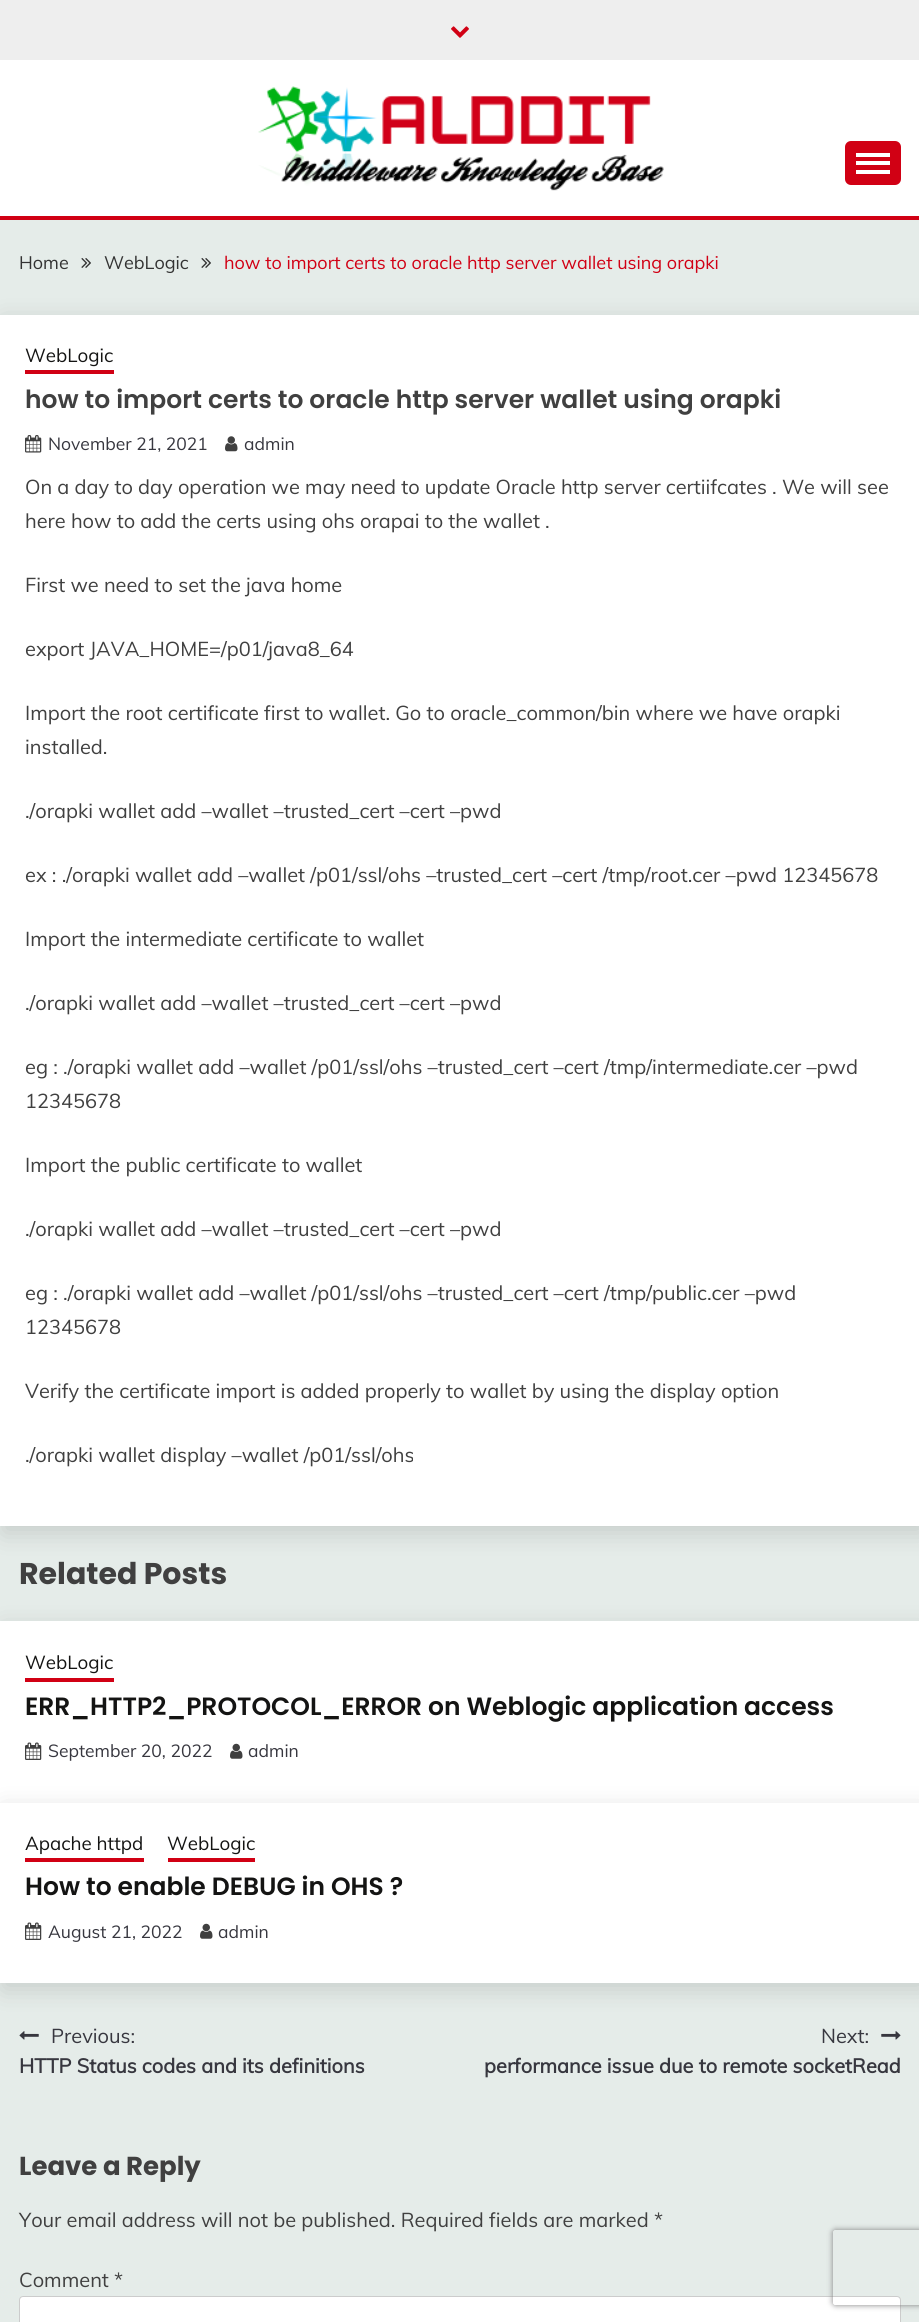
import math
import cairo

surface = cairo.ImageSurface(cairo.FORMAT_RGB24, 919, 2322)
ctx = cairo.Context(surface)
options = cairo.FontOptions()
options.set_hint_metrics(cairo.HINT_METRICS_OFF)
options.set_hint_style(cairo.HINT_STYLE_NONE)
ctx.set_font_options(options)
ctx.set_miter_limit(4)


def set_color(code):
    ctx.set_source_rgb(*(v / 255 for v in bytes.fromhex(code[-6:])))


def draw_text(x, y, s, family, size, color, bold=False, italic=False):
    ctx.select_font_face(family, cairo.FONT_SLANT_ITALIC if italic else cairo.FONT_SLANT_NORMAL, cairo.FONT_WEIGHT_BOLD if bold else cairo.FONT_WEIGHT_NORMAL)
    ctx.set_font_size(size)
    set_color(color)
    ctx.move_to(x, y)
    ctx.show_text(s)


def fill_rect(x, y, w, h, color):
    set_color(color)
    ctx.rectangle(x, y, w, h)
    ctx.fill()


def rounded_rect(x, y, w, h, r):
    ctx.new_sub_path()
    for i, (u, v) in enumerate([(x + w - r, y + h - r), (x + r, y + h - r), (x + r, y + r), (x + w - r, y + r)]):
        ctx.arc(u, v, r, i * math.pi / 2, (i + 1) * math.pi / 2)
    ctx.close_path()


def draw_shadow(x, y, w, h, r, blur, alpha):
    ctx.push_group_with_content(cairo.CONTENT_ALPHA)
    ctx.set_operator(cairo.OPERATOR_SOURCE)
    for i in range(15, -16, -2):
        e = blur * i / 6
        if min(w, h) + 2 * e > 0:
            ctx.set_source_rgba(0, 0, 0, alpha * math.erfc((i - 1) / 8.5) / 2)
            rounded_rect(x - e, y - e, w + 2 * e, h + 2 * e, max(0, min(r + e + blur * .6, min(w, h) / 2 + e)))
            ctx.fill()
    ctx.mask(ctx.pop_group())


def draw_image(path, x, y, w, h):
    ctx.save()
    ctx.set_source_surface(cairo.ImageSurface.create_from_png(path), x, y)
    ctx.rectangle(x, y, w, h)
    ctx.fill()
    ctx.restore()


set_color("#e5ece9")
ctx.paint()
fill_rect(0, 60, 919, 156, "#ffffff")
fill_rect(0, 0, 919, 60, "#eeeeee")
draw_image("assets/img1.png", 451, 26, 18, 12)
draw_image("assets/img2.png", 258, 86, 406, 105)
set_color("#d10014")
rounded_rect(845, 141, 56, 44, 6)
ctx.fill()
fill_rect(856, 153, 34, 4, "#ffffff")
fill_rect(856, 161, 34, 4, "#ffffff")
fill_rect(856, 170, 34, 4, "#ffffff")
fill_rect(0, 216, 919, 4, "#d10014")
draw_text(19, 269, "Home", "Muli", 18, "#333333")
draw_image("assets/img3.png", 81, 258, 10, 10)
draw_text(104, 269, "WebLogic", "Muli", 18, "#333333")
draw_image("assets/img3.png", 201, 258, 10, 10)
draw_text(224, 269, "how to import certs to oracle http server wallet using orapki", "Muli", 18, "#d10014")
set_color("#000000")
draw_shadow(3, 321, 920, 1212, 0, 12.5, 0.14)
fill_rect(0, 315, 919, 1211, "#ffffff")
draw_text(25, 362, "WebLogic", "Muli", 18.75, "#141413")
fill_rect(25, 370, 89, 4, "#d10014")
draw_text(25, 408, "how to import certs to oracle http server wallet using orapki", "Poppins SemiBold", 25, "#404040")
draw_image("assets/img4.png", 25, 435, 17, 18)
draw_text(48, 450, "November 21, 2021", "Muli", 17.5, "#37373f")
draw_image("assets/img5.png", 225, 436, 13, 16)
draw_text(244, 450, "admin", "Muli", 17.5, "#37373f")
draw_text(25, 494, "On a day to day operation we may need to update Oracle http server certiifcates . We will see", "Muli", 20, "#404040")
draw_text(25, 528, "here how to add the certs using ohs orapai to the wallet .", "Muli", 20, "#404040")
draw_text(25, 592, "First we need to set the java home", "Muli", 20, "#404040")
draw_text(25, 656, "export JAVA_HOME=/p01/java8_64", "Muli", 20, "#404040")
draw_text(25, 720, "Import the root certificate first to wallet. Go to oracle_common/bin where we have orapki", "Muli", 20, "#404040")
draw_text(25, 754, "installed.", "Muli", 20, "#404040")
draw_text(25, 818, "./orapki wallet add –wallet –trusted_cert –cert –pwd", "Muli", 20, "#404040")
draw_text(25, 882, "ex : ./orapki wallet add –wallet /p01/ssl/ohs –trusted_cert –cert /tmp/root.cer –pwd 12345678", "Muli", 20, "#404040")
draw_text(25, 946, "Import the intermediate certificate to wallet", "Muli", 20, "#404040")
draw_text(25, 1010, "./orapki wallet add –wallet –trusted_cert –cert –pwd", "Muli", 20, "#404040")
draw_text(25, 1074, "eg : ./orapki wallet add –wallet /p01/ssl/ohs –trusted_cert –cert /tmp/intermediate.cer –pwd", "Muli", 20, "#404040")
draw_text(25, 1108, "12345678", "Muli", 20, "#404040")
draw_text(25, 1172, "Import the public certificate to wallet", "Muli", 20, "#404040")
draw_text(25, 1236, "./orapki wallet add –wallet –trusted_cert –cert –pwd", "Muli", 20, "#404040")
draw_text(25, 1300, "eg : ./orapki wallet add –wallet /p01/ssl/ohs –trusted_cert –cert /tmp/public.cer –pwd", "Muli", 20, "#404040")
draw_text(25, 1334, "12345678", "Muli", 20, "#404040")
draw_text(25, 1398, "Verify the certificate import is added properly to wallet by using the display option", "Muli", 20, "#404040")
draw_text(25, 1462, "./orapki wallet display –wallet /p01/ssl/ohs", "Muli", 20, "#404040")
draw_text(19, 1584, "Related Posts", "Poppins", 30, "#404040", bold=True)
set_color("#000000")
draw_shadow(3, 1628, 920, 181, 0, 12.5, 0.14)
fill_rect(0, 1621, 919, 182, "#ffffff")
draw_text(25, 1669, "WebLogic", "Muli", 18.75, "#141413")
fill_rect(25, 1678, 89, 4, "#d10014")
draw_text(25, 1715, "ERR_HTTP2_PROTOCOL_ERROR on Weblogic application access", "Poppins SemiBold", 25, "#141413")
draw_image("assets/img6.png", 25, 1742, 17, 18)
draw_text(48, 1757, "September 20, 2022", "Muli", 17.5, "#37373f")
draw_image("assets/img7.png", 230, 1743, 13, 16)
draw_text(248, 1757, "admin", "Muli", 17.5, "#37373f")
set_color("#000000")
draw_shadow(3, 1809, 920, 180, 0, 12.5, 0.14)
fill_rect(0, 1803, 919, 180, "#ffffff")
draw_text(25, 1850, "Apache httpd", "Muli", 18.75, "#141413")
fill_rect(25, 1858, 119, 4, "#d10014")
draw_text(167, 1850, "WebLogic", "Muli", 18.75, "#141413")
fill_rect(168, 1858, 87, 4, "#d10014")
draw_text(25, 1895, "How to enable DEBUG in OHS ?", "Poppins SemiBold", 25, "#141413")
draw_image("assets/img6.png", 25, 1922, 17, 18)
draw_text(48, 1938, "August 21, 2022", "Muli", 17.5, "#37373f")
draw_image("assets/img7.png", 200, 1923, 13, 16)
draw_text(218, 1938, "admin", "Muli", 17.5, "#37373f")
draw_image("assets/img8.png", 19, 2031, 20, 9)
draw_text(51, 2043, "Previous:", "Muli", 20, "#37373f")
draw_text(19, 2073, "HTTP Status codes and its definitions", "Muli", 20, "#37373f", bold=True)
draw_text(821, 2043, "Next:", "Muli", 20, "#37373f")
draw_image("assets/img9.png", 881, 2031, 20, 9)
draw_text(484, 2073, "performance issue due to remote socketRead", "Muli", 20, "#37373f", bold=True)
draw_text(19, 2175, "Leave a Reply", "Poppins", 26, "#404040", bold=True)
draw_text(19, 2227, "Your email address will not be published. Required fields are marked *", "Muli", 20, "#404040")
draw_text(19, 2287, "Comment *", "Muli", 20, "#404040")
set_color("#ffffff")
rounded_rect(19.5, 2296.5, 881, 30, 3.5)
ctx.fill_preserve()
set_color("#cccccc")
ctx.set_line_width(1)
ctx.stroke()
ctx.save()
ctx.set_fill_rule(cairo.FILL_RULE_EVEN_ODD)
ctx.new_path()
ctx.move_to(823, 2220)
ctx.line_to(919, 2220)
ctx.line_to(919, 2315)
ctx.line_to(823, 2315)
ctx.close_path()
ctx.move_to(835.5, 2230)
ctx.line_to(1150.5, 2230)
ctx.curve_to(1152, 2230, 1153, 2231, 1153, 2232.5)
ctx.line_to(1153, 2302.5)
ctx.curve_to(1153, 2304, 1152, 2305, 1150.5, 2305)
ctx.line_to(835.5, 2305)
ctx.curve_to(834, 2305, 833, 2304, 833, 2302.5)
ctx.line_to(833, 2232.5)
ctx.curve_to(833, 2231, 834, 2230, 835.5, 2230)
ctx.close_path()
ctx.clip()
set_color("#808080")
draw_shadow(833, 2230, 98, 75, 2.5, 3, 1)
ctx.restore()
surface.write_to_png("output.png")
